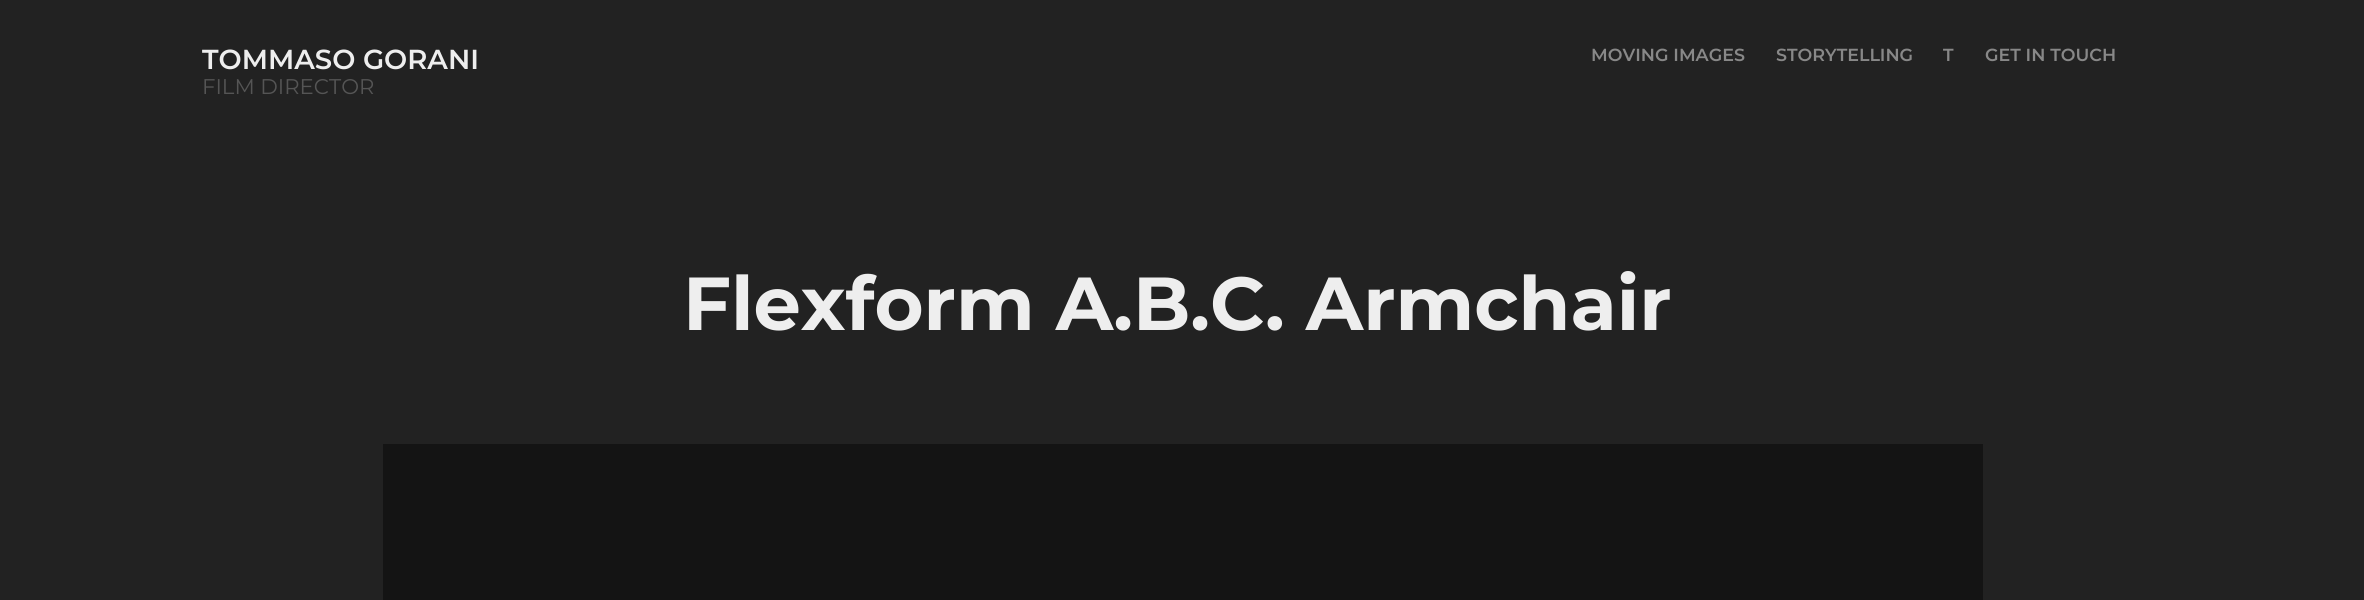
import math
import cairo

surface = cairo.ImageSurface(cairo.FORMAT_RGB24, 2364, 600)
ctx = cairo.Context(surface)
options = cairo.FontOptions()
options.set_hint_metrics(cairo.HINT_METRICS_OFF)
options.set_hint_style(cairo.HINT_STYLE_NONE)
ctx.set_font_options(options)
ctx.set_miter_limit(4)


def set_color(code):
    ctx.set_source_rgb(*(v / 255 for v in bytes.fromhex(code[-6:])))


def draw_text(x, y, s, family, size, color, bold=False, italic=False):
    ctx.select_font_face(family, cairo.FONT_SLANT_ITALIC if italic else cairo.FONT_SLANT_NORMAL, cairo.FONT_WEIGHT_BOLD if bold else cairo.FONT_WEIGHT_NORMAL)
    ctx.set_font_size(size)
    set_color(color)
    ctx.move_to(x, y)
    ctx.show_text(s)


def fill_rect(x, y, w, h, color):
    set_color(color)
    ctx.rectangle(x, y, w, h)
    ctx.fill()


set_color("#222222")
ctx.paint()
draw_text(202, 69, "TOMMASO GORANI", "Montserrat SemiBold", 27.5, "#eeeeee")
draw_text(202, 94, "FILM DIRECTOR", "Montserrat", 21.25, "#555555")
draw_text(1591, 61, "MOVING IMAGES", "Montserrat SemiBold", 17.5, "#888888")
draw_text(1776, 61, "STORYTELLING", "Montserrat SemiBold", 17.5, "#888888")
draw_text(1943, 61, "T", "Montserrat SemiBold", 17.5, "#888888")
draw_text(1985, 61, "GET IN TOUCH", "Montserrat SemiBold", 17.5, "#888888")
draw_text(683, 330, "Flexform A.B.C. Armchair", "Montserrat", 75, "#eeeeee", bold=True)
fill_rect(383, 444, 1600, 156, "#141414")
surface.write_to_png("output.png")
